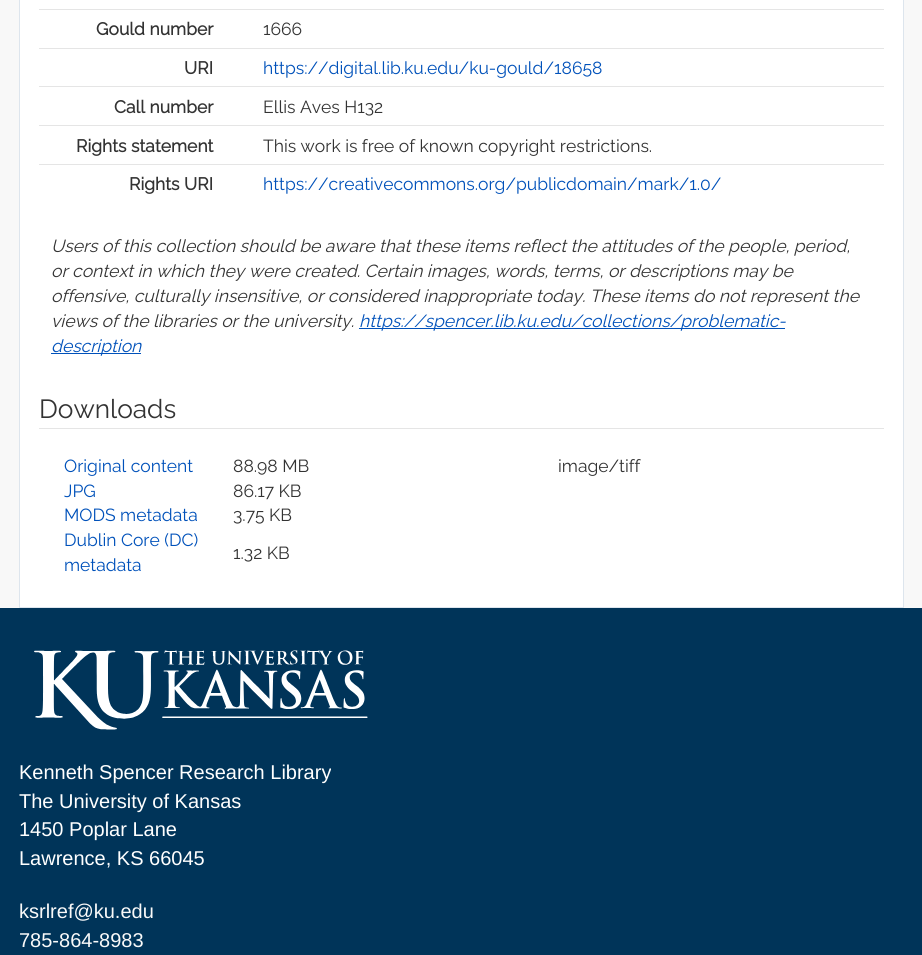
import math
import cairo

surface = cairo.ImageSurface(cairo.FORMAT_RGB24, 922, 955)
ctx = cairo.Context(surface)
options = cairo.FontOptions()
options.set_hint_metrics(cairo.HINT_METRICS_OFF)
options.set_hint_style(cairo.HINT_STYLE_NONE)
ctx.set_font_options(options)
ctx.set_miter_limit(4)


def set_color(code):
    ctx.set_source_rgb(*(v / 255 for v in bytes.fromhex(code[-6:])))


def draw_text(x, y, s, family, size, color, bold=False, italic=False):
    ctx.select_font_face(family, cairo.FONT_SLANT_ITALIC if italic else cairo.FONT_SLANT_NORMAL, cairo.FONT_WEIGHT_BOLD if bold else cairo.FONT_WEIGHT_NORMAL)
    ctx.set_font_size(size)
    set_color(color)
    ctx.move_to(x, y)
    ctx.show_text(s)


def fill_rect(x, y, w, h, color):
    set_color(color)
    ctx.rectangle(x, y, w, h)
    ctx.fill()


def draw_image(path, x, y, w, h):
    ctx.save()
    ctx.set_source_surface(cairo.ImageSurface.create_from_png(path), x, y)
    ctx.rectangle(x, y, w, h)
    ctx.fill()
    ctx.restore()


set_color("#f8f8f8")
ctx.paint()
set_color("#ffffff")
ctx.rectangle(19.5, -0.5, 884, 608)
ctx.fill_preserve()
set_color("#dde5ed")
ctx.set_line_width(1)
ctx.stroke()
fill_rect(39, 9, 845, 1, "#e5e5e5")
draw_text(96, 35, "Gould number", "Raleway", 17.5, "#333333", bold=True)
draw_text(263, 35, "1666", "Raleway Thin", 17.5, "#333333")
fill_rect(39, 48, 845, 1, "#e5e5e5")
draw_text(184, 74, "URI", "Raleway", 17.5, "#333333", bold=True)
draw_text(263, 74, "https://digital.lib.ku.edu/ku-gould/18658", "Raleway Thin", 17.5, "#0051ba")
fill_rect(39, 86, 845, 1, "#e5e5e5")
draw_text(114, 113, "Call number", "Raleway", 17.5, "#333333", bold=True)
draw_text(263, 113, "Ellis Aves H132", "Raleway Thin", 17.5, "#333333")
fill_rect(39, 125, 845, 1, "#e5e5e5")
draw_text(76, 152, "Rights statement", "Raleway", 17.5, "#333333", bold=True)
draw_text(263, 152, "This work is free of known copyright restrictions.", "Raleway Thin", 17.5, "#333333")
fill_rect(39, 164, 845, 1, "#e5e5e5")
draw_text(129, 190, "Rights URI", "Raleway", 17.5, "#333333", bold=True)
draw_text(263, 190, "https://creativecommons.org/publicdomain/mark/1.0/", "Raleway Thin", 17.5, "#0051ba")
draw_text(51, 252, "Users of this collection should be aware that these items reflect the attitudes of the people, period,", "Raleway Thin", 17.5, "#333333", italic=True)
draw_text(51, 277, "or context in which they were created. Certain images, words, terms, or descriptions may be", "Raleway Thin", 17.5, "#333333", italic=True)
draw_text(51, 302, "offensive, culturally insensitive, or considered inappropriate today. These items do not represent the", "Raleway Thin", 17.5, "#333333", italic=True)
draw_text(51, 327, "views of the libraries or the university.", "Raleway Thin", 17.5, "#333333", italic=True)
fill_rect(359, 328, 426, 1, "#0051ba")
draw_text(359, 327, "https://spencer.lib.ku.edu/collections/problematic-", "Raleway Thin", 17.5, "#0051ba", italic=True)
fill_rect(51, 353, 90, 1, "#0051ba")
draw_text(51, 352, "description", "Raleway Thin", 17.5, "#0051ba", italic=True)
fill_rect(39, 428, 845, 1, "#e5e5e5")
draw_text(39, 418, "Downloads", "Raleway Thin", 26.25, "#333333")
draw_text(64, 472, "Original content", "Raleway Thin", 17.5, "#0051ba")
draw_text(233, 472, "88.98 MB", "Raleway Thin", 17.5, "#333333")
draw_text(558, 472, "image/tiff", "Raleway Thin", 17.5, "#333333")
draw_text(64, 497, "JPG", "Raleway Thin", 17.5, "#0051ba")
draw_text(233, 497, "86.17 KB", "Raleway Thin", 17.5, "#333333")
draw_text(64, 521, "MODS metadata", "Raleway Thin", 17.5, "#0051ba")
draw_text(233, 521, "3.75 KB", "Raleway Thin", 17.5, "#333333")
draw_text(64, 546, "Dublin Core (DC)", "Raleway Thin", 17.5, "#0051ba")
draw_text(64, 571, "metadata", "Raleway Thin", 17.5, "#0051ba")
draw_text(233, 559, "1.32 KB", "Raleway Thin", 17.5, "#333333")
fill_rect(0, 608, 922, 347, "#003459")
draw_image("assets/img1.png", 34, 650, 334, 80)
draw_text(19, 779, "Kenneth Spencer Research Library", "Liberation Sans", 20, "#ffffff")
draw_text(19, 808, "The University of Kansas", "Liberation Sans", 20, "#ffffff")
draw_text(19, 836, "1450 Poplar Lane", "Liberation Sans", 20, "#ffffff")
draw_text(19, 865, "Lawrence, KS 66045", "Liberation Sans", 20, "#ffffff")
draw_text(19, 918, "ksrlref@ku.edu", "Liberation Sans", 20, "#f9f9f9")
draw_text(19, 947, "785-864-8983", "Liberation Sans", 20, "#f9f9f9")
surface.write_to_png("output.png")
